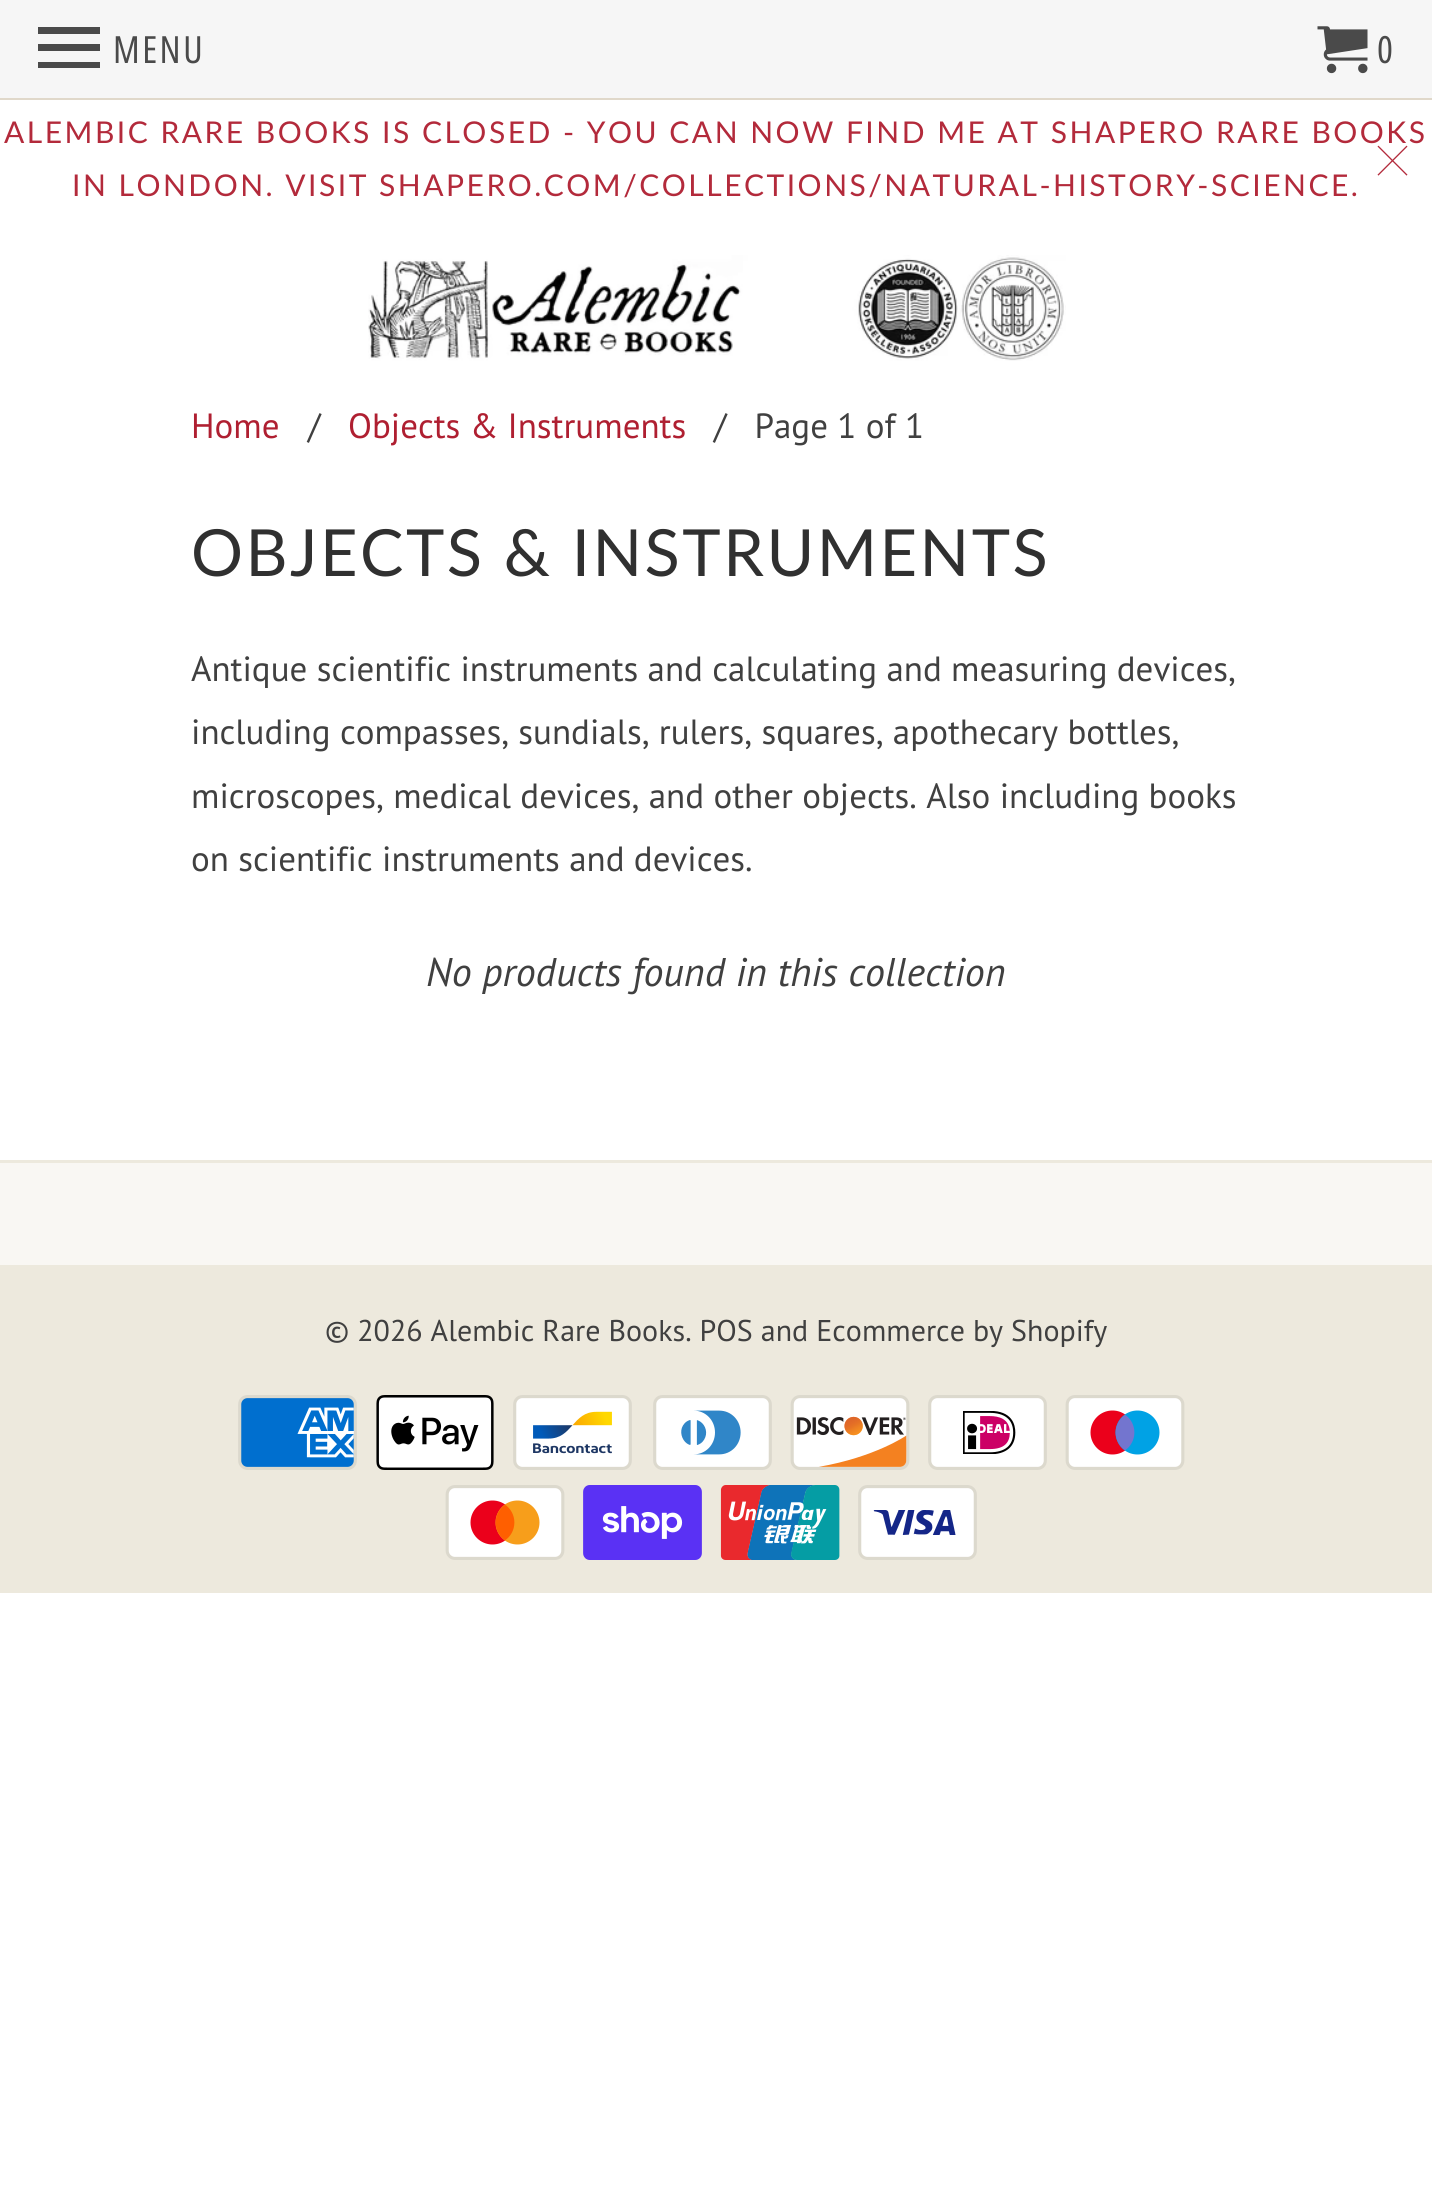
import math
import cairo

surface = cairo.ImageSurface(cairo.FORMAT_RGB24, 1432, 2187)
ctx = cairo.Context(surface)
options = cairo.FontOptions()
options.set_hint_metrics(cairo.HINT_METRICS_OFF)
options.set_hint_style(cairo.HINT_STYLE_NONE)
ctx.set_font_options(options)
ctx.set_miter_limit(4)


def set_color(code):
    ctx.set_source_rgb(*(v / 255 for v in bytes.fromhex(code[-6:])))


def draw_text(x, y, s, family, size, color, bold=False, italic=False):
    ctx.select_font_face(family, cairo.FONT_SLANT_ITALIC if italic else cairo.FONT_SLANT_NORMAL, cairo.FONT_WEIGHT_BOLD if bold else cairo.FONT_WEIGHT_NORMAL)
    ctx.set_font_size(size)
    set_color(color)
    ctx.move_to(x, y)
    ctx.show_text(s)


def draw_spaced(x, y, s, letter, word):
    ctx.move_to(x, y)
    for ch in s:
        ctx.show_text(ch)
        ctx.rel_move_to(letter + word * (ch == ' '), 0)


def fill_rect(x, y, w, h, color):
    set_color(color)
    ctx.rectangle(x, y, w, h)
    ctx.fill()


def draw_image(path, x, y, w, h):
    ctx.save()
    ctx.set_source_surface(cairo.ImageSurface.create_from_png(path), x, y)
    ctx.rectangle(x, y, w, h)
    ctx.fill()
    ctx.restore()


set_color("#ffffff")
ctx.paint()
fill_rect(0, 0, 1432, 98, "#f6f6f6")
fill_rect(0, 98, 1432, 2, "#e0d8ca")
set_color("#4a4a4a")
ctx.new_path()
ctx.move_to(38, 68)
ctx.line_to(100, 68)
ctx.line_to(100, 62)
ctx.line_to(38, 62)
ctx.close_path()
ctx.move_to(38, 51)
ctx.line_to(100, 51)
ctx.line_to(100, 44)
ctx.line_to(38, 44)
ctx.close_path()
ctx.move_to(38, 27)
ctx.line_to(38, 34)
ctx.line_to(100, 34)
ctx.line_to(100, 27)
ctx.close_path()
ctx.fill()
ctx.select_font_face("Open Sans Condensed")
ctx.set_font_size(37.5)
draw_spaced(113, 63, "MENU", 2.5, 0)
draw_image("assets/img1.png", 1317, 26, 51, 48)
draw_spaced(1377, 63, "0", 2.5, 0)
ctx.select_font_face("Lato")
ctx.set_font_size(30)
set_color("#b32a3b")
draw_spaced(4, 143, "ALEMBIC RARE BOOKS IS CLOSED - YOU CAN NOW FIND ME AT SHAPERO RARE BOOKS", 2.5, 0)
draw_spaced(72, 196, "IN LONDON. VISIT SHAPERO.COM/COLLECTIONS/NATURAL-HISTORY-SCIENCE.", 2.5, 0)
draw_image("assets/img2.png", 1377, 145, 31, 31)
draw_image("assets/img3.png", 368, 255, 698, 106)
draw_text(191, 438, "Home", "PT Sans", 35, "#af1f31")
draw_text(308, 438, "/", "PT Sans", 35, "#404040")
draw_text(348, 438, "Objects & Instruments", "PT Sans", 35, "#af1f31")
draw_text(714, 438, "/   Page 1 of 1", "PT Sans", 35, "#404040")
ctx.select_font_face("Lato")
ctx.set_font_size(65)
set_color("#303030")
draw_spaced(191, 576, "OBJECTS & INSTRUMENTS", 2.5, 0)
draw_text(191, 681, "Antique scientific instruments and calculating and measuring devices,", "PT Sans", 35, "#404040")
draw_text(191, 744, "including compasses, sundials, rulers, squares, apothecary bottles,", "PT Sans", 35, "#404040")
draw_text(191, 808, "microscopes, medical devices, and other objects. Also including books", "PT Sans", 35, "#404040")
draw_text(191, 871, "on scientific instruments and devices.", "PT Sans", 35, "#404040")
draw_text(426, 986, "No products found in this collection", "PT Sans", 40, "#404040", italic=True)
fill_rect(0, 1163, 1432, 102, "#f9f7f3")
fill_rect(0, 1160, 1432, 3, "#ede9dd")
fill_rect(0, 1265, 1432, 328, "#ede9dd")
draw_text(325, 1341, "© 2026 Alembic Rare Books. POS and Ecommerce by Shopify", "PT Sans", 30, "#404040")
draw_image("assets/img4.png", 238, 1395, 119, 75)
draw_image("assets/img5.png", 376, 1395, 118, 75)
draw_image("assets/img6.png", 513, 1395, 119, 75)
draw_image("assets/img7.png", 653, 1395, 119, 75)
draw_image("assets/img8.png", 790, 1395, 120, 75)
draw_image("assets/img9.png", 928, 1395, 119, 75)
draw_image("assets/img10.png", 1065, 1395, 120, 75)
draw_image("assets/img11.png", 445, 1485, 120, 75)
draw_image("assets/img12.png", 583, 1485, 119, 75)
draw_image("assets/img13.png", 720, 1485, 120, 75)
draw_image("assets/img14.png", 858, 1485, 119, 75)
surface.write_to_png("output.png")
